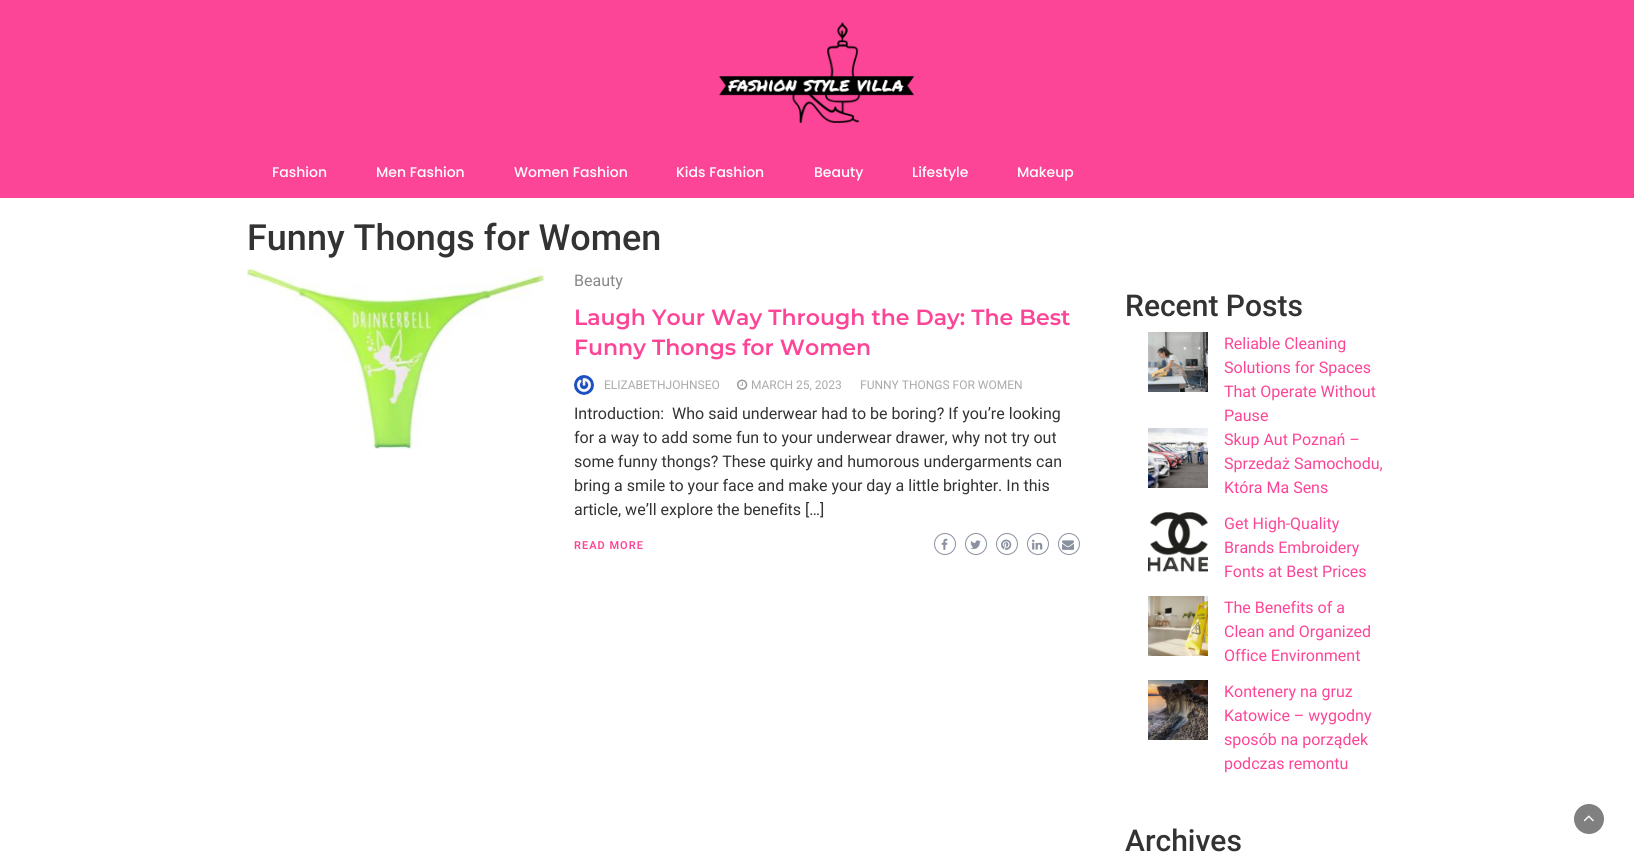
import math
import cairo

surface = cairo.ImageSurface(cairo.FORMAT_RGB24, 1634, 864)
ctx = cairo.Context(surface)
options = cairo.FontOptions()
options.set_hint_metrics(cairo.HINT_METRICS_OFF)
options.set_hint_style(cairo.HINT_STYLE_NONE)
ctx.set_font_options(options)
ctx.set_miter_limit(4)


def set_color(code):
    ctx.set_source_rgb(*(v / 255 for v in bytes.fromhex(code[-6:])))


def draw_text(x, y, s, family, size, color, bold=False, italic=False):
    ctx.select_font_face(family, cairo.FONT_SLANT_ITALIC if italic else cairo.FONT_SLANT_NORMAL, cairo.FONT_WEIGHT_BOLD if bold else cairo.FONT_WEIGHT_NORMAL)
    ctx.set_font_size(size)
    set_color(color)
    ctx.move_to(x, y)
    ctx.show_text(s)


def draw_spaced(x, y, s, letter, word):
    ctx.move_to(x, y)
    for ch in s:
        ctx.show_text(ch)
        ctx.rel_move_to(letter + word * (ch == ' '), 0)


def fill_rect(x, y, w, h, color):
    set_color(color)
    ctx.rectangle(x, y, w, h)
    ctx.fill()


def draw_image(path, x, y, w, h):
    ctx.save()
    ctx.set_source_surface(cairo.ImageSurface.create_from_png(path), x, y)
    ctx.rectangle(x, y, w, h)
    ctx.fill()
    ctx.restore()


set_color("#ffffff")
ctx.paint()
fill_rect(0, 0, 1634, 198, "#fd4597")
draw_image("assets/img1.png", 718, 22, 197, 101)
draw_text(272, 177, "Fashion", "Poppins Medium", 14, "#ffffff")
draw_text(376, 177, "Men Fashion", "Poppins Medium", 14, "#ffffff")
draw_text(514, 177, "Women Fashion", "Poppins Medium", 14, "#ffffff")
draw_text(676, 177, "Kids Fashion", "Poppins Medium", 14, "#ffffff")
draw_text(814, 177, "Beauty", "Poppins Medium", 14, "#ffffff")
draw_text(912, 177, "Lifestyle", "Poppins Medium", 14, "#ffffff")
draw_text(1017, 177, "Makeup", "Poppins Medium", 14, "#ffffff")
draw_text(247, 250, "Funny Thongs for Women", "Roboto Medium", 36, "#333333")
draw_image("assets/img2.png", 247, 269, 297, 180)
draw_text(574, 286, "Beauty", "Roboto", 16, "#888888")
draw_text(574, 325, "Laugh Your Way Through the Day: The Best", "Montserrat SemiBold", 22, "#fd4597")
draw_text(574, 355, "Funny Thongs for Women", "Montserrat SemiBold", 22, "#fd4597")
draw_image("assets/img3.png", 574, 375, 20, 20)
draw_text(604, 389, "ELIZABETHJOHNSEO", "Roboto", 12, "#aaaaaa")
draw_image("assets/img4.png", 737, 379, 11, 11)
draw_text(751, 389, "MARCH 25, 2023", "Roboto", 12, "#aaaaaa")
draw_text(860, 389, "FUNNY THONGS FOR WOMEN", "Roboto", 12, "#aaaaaa")
draw_text(574, 419, "Introduction:  Who said underwear had to be boring? If you’re looking", "Roboto", 16, "#333333")
draw_text(574, 443, "for a way to add some fun to your underwear drawer, why not try out", "Roboto", 16, "#333333")
draw_text(574, 467, "some funny thongs? These quirky and humorous undergarments can", "Roboto", 16, "#333333")
draw_text(574, 491, "bring a smile to your face and make your day a little brighter. In this", "Roboto", 16, "#333333")
draw_text(574, 515, "article, we’ll explore the benefits […]", "Roboto", 16, "#333333")
ctx.select_font_face("Roboto SemiBold")
ctx.set_font_size(11)
set_color("#fd4597")
draw_spaced(574, 549, "READ MORE", 1, 0)
ctx.new_path()
ctx.arc(945, 544, 10.5, 0, 2 * math.pi)
set_color("#8990a0")
ctx.set_line_width(1)
ctx.stroke()
draw_image("assets/img5.png", 941, 538, 7, 12)
ctx.arc(976, 544, 10.5, 0, 2 * math.pi)
ctx.stroke()
draw_image("assets/img6.png", 970, 540, 11, 9)
ctx.arc(1007, 544, 10.5, 0, 2 * math.pi)
ctx.stroke()
draw_image("assets/img7.png", 1001, 539, 11, 11)
ctx.arc(1038, 544, 10.5, 0, 2 * math.pi)
ctx.stroke()
draw_image("assets/img8.png", 1032, 539, 11, 11)
ctx.arc(1069, 544, 10.5, 0, 2 * math.pi)
ctx.stroke()
draw_image("assets/img9.png", 1062, 540, 12, 10)
draw_text(1125, 316, "Recent Posts", "Roboto Medium", 30, "#333333")
draw_image("assets/img10.png", 1148, 332, 60, 60)
draw_text(1224, 349, "Reliable Cleaning", "Roboto", 16, "#fd4597")
draw_text(1224, 373, "Solutions for Spaces", "Roboto", 16, "#fd4597")
draw_text(1224, 397, "That Operate Without", "Roboto", 16, "#fd4597")
draw_text(1224, 421, "Pause", "Roboto", 16, "#fd4597")
draw_image("assets/img11.png", 1148, 428, 60, 60)
draw_text(1224, 445, "Skup Aut Poznań –", "Roboto", 16, "#fd4597")
draw_text(1224, 469, "Sprzedaż Samochodu,", "Roboto", 16, "#fd4597")
draw_text(1224, 493, "Która Ma Sens", "Roboto", 16, "#fd4597")
draw_image("assets/img12.png", 1148, 512, 60, 60)
draw_text(1224, 529, "Get High-Quality", "Roboto", 16, "#fd4597")
draw_text(1224, 553, "Brands Embroidery", "Roboto", 16, "#fd4597")
draw_text(1224, 577, "Fonts at Best Prices", "Roboto", 16, "#fd4597")
draw_image("assets/img13.png", 1148, 596, 60, 60)
draw_text(1224, 613, "The Benefits of a", "Roboto", 16, "#fd4597")
draw_text(1224, 637, "Clean and Organized", "Roboto", 16, "#fd4597")
draw_text(1224, 661, "Office Environment", "Roboto", 16, "#fd4597")
draw_image("assets/img14.png", 1148, 680, 60, 60)
draw_text(1224, 697, "Kontenery na gruz", "Roboto", 16, "#fd4597")
draw_text(1224, 721, "Katowice – wygodny", "Roboto", 16, "#fd4597")
draw_text(1224, 745, "sposób na porządek", "Roboto", 16, "#fd4597")
draw_text(1224, 769, "podczas remontu", "Roboto", 16, "#fd4597")
draw_text(1125, 851, "Archives", "Roboto Medium", 30, "#333333")
set_color("#808080")
ctx.new_path()
ctx.arc(1589, 819, 15, 0, 2 * math.pi)
ctx.fill()
draw_image("assets/img15.png", 1583, 815, 11, 7)
surface.write_to_png("output.png")
